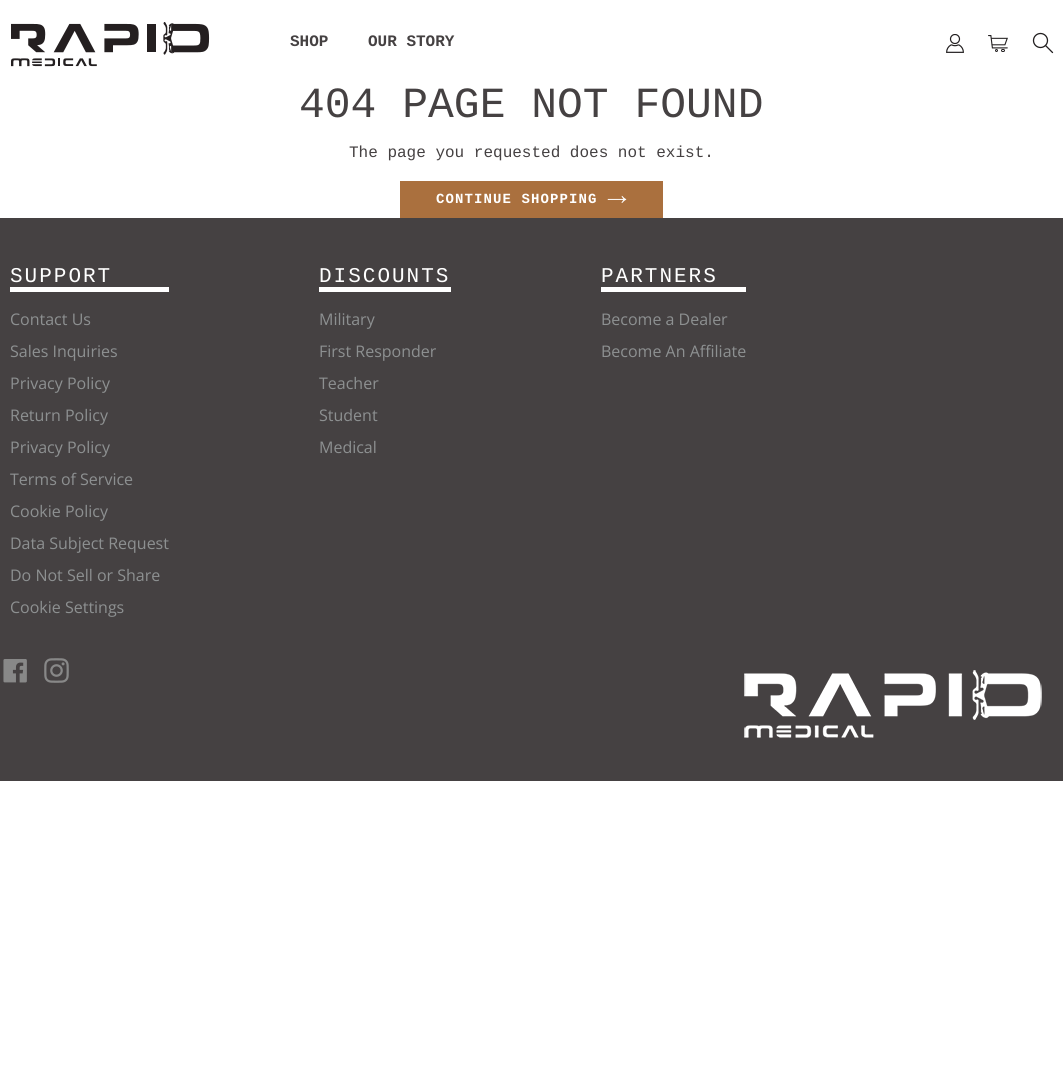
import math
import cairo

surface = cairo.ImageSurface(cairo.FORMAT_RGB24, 1063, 1067)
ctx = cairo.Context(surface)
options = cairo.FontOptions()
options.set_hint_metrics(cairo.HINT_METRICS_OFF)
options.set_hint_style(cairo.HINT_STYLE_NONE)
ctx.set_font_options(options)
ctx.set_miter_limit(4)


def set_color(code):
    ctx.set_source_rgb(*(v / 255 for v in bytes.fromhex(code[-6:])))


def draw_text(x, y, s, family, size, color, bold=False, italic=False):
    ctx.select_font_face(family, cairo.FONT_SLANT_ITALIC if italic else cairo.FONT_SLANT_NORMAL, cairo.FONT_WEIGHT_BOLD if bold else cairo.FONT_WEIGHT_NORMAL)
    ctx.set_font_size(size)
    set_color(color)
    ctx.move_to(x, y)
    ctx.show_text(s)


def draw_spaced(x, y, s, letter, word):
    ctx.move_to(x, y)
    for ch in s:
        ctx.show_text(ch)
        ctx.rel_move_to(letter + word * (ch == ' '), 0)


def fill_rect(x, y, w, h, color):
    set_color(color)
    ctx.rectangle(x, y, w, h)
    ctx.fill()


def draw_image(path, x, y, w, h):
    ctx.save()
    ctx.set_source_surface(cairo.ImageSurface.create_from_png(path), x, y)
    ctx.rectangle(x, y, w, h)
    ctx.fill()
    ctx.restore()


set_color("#ffffff")
ctx.paint()
draw_image("assets/img1.png", 11, 22, 199, 45)
draw_text(290, 46, "SHOP", "Liberation Mono", 16, "#454142", bold=True)
draw_text(368, 46, "OUR STORY", "Liberation Mono", 16, "#454142", bold=True)
draw_image("assets/img2.png", 946, 34, 18, 19)
draw_image("assets/img3.png", 988, 35, 20, 17)
ctx.arc(1040.5, 40.5, 7, 0, 2 * math.pi)
set_color("#221f20")
ctx.set_line_width(1.3)
ctx.stroke()
ctx.new_path()
ctx.move_to(1045.5, 45.5)
ctx.line_to(1052.5, 52.5)
ctx.set_line_cap(cairo.LINE_CAP_ROUND)
ctx.stroke()
draw_text(299, 117, "404 PAGE NOT FOUND", "Liberation Mono", 43, "#454142")
draw_text(349, 157, "The page you requested does not exist.", "Liberation Mono", 16, "#454142")
fill_rect(400, 181, 263, 37, "#aa703e")
ctx.select_font_face("Liberation Mono", cairo.FONT_SLANT_NORMAL, cairo.FONT_WEIGHT_BOLD)
ctx.set_font_size(14)
set_color("#ffffff")
draw_spaced(436, 203, "CONTINUE SHOPPING", 1.1, 0)
draw_image("assets/img4.png", 607, 195, 20, 8)
fill_rect(0, 218, 1063, 563, "#454142")
ctx.select_font_face("Liberation Mono")
ctx.set_font_size(21)
set_color("#ffffff")
draw_spaced(10, 282, "SUPPORT", 2, 0)
fill_rect(10, 287, 159, 5, "#ffffff")
draw_text(10, 325, "Contact Us", "Open Sans", 16, "#8d9091")
draw_text(10, 357, "Sales Inquiries", "Open Sans", 16, "#8d9091")
draw_text(10, 389, "Privacy Policy", "Open Sans", 16, "#8d9091")
draw_text(10, 421, "Return Policy", "Open Sans", 16, "#8d9091")
draw_text(10, 453, "Privacy Policy", "Open Sans", 16, "#8d9091")
draw_text(10, 485, "Terms of Service", "Open Sans", 16, "#8d9091")
draw_text(10, 517, "Cookie Policy", "Open Sans", 16, "#8d9091")
draw_text(10, 549, "Data Subject Request", "Open Sans", 16, "#8d9091")
draw_text(10, 581, "Do Not Sell or Share", "Open Sans", 16, "#8d9091")
draw_text(10, 613, "Cookie Settings", "Open Sans", 16, "#8d9091")
ctx.select_font_face("Liberation Mono")
ctx.set_font_size(21)
set_color("#ffffff")
draw_spaced(319, 282, "DISCOUNTS", 2, 0)
fill_rect(319, 287, 132, 5, "#ffffff")
draw_text(319, 325, "Military", "Open Sans", 16, "#8d9091")
draw_text(319, 357, "First Responder", "Open Sans", 16, "#8d9091")
draw_text(319, 389, "Teacher", "Open Sans", 16, "#8d9091")
draw_text(319, 421, "Student", "Open Sans", 16, "#8d9091")
draw_text(319, 453, "Medical", "Open Sans", 16, "#8d9091")
ctx.select_font_face("Liberation Mono")
ctx.set_font_size(21)
set_color("#ffffff")
draw_spaced(601, 282, "PARTNERS", 2, 0)
fill_rect(601, 287, 145, 5, "#ffffff")
draw_text(601, 325, "Become a Dealer", "Open Sans", 16, "#8d9091")
draw_text(601, 357, "Become An Affiliate", "Open Sans", 16, "#8d9091")
draw_image("assets/img5.png", 3, 659, 24, 24)
draw_image("assets/img6.png", 44, 658, 25, 25)
draw_image("assets/img7.png", 744, 670, 298, 68)
surface.write_to_png("output.png")
